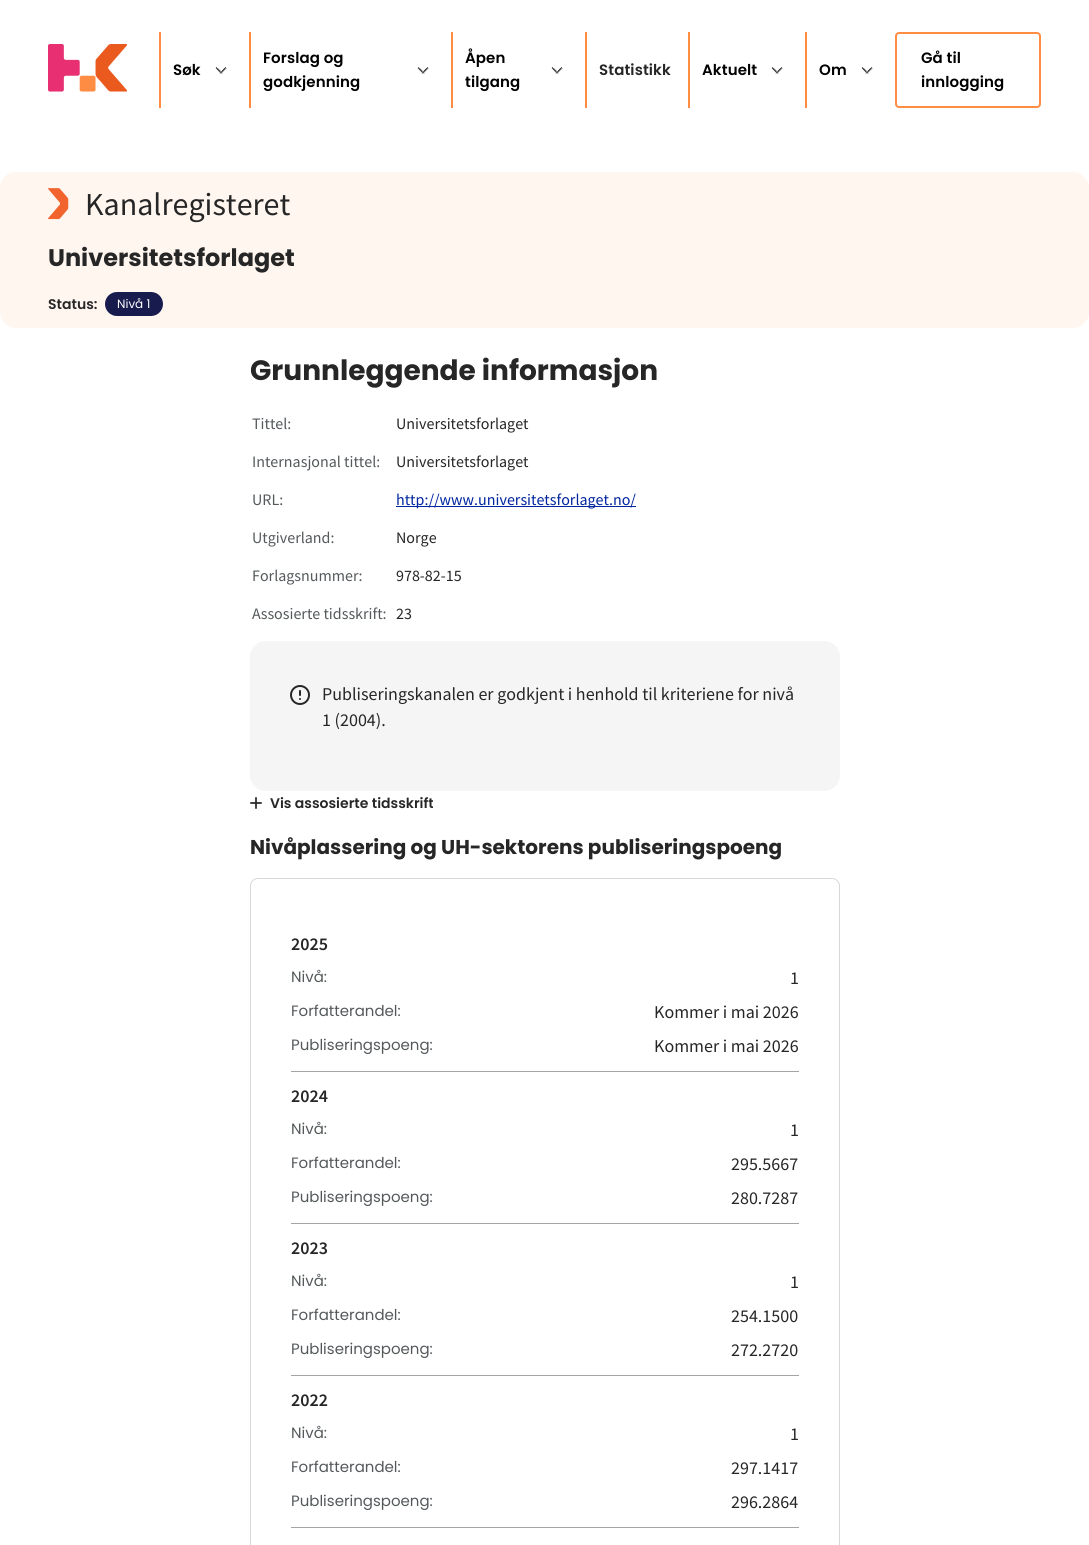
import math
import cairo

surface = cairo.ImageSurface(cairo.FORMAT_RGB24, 1089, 1545)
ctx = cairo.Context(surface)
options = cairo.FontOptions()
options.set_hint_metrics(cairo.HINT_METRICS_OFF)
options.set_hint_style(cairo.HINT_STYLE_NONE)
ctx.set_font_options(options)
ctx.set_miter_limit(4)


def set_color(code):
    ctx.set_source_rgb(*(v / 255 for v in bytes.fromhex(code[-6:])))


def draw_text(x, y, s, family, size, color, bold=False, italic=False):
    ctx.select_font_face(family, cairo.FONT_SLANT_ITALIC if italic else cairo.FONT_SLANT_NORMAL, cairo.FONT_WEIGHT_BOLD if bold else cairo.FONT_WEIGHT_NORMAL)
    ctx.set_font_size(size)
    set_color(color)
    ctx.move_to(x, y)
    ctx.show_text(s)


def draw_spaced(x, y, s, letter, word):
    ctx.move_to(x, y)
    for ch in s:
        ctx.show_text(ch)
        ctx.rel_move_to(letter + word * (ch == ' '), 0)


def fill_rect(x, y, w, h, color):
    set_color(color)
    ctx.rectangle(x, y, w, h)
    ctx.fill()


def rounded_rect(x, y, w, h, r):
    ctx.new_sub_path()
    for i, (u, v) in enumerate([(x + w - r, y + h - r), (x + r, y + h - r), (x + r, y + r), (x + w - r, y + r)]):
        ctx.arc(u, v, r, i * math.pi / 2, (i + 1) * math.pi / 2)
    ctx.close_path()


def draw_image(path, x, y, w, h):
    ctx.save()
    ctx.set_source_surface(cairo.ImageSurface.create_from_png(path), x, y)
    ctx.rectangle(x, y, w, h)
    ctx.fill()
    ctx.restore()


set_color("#ffffff")
ctx.paint()
draw_image("assets/img1.png", 48, 44, 79, 48)
fill_rect(159, 32, 2, 76, "#ff8c43")
ctx.select_font_face("Poppins SemiBold")
ctx.set_font_size(15)
set_color("#000000")
draw_spaced(173, 75, "Søk", 0.1, 0)
draw_image("assets/img2.png", 215, 67, 12, 7)
fill_rect(249, 32, 2, 76, "#ff8c43")
set_color("#000000")
draw_spaced(263, 63, "Forslag og", 0.1, 0)
draw_spaced(263, 87, "godkjenning", 0.1, 0)
draw_image("assets/img2.png", 417, 67, 12, 7)
fill_rect(451, 32, 2, 76, "#ff8c43")
set_color("#000000")
draw_spaced(465, 63, "Åpen", 0.1, 0)
draw_spaced(465, 87, "tilgang", 0.1, 0)
draw_image("assets/img2.png", 551, 67, 12, 7)
fill_rect(585, 32, 2, 76, "#ff8c43")
set_color("#262626")
draw_spaced(599, 75, "Statistikk", 0.1, 0)
fill_rect(688, 32, 2, 76, "#ff8c43")
set_color("#000000")
draw_spaced(702, 75, "Aktuelt", 0.1, 0)
draw_image("assets/img2.png", 771, 67, 12, 7)
fill_rect(805, 32, 2, 76, "#ff8c43")
set_color("#000000")
draw_spaced(819, 75, "Om", 0.1, 0)
draw_image("assets/img2.png", 861, 67, 12, 7)
rounded_rect(896, 33, 144, 74, 3)
set_color("#ff8c43")
ctx.stroke()
set_color("#000000")
draw_spaced(921, 63, "Gå til", 0.1, 0)
draw_spaced(921, 87, "innlogging", 0.1, 0)
set_color("#fff6f0")
rounded_rect(0, 172, 1089, 156, 16)
ctx.fill()
draw_image("assets/img3.png", 48, 188, 21, 32)
draw_text(85, 215, "Kanalregisteret", "Source Sans Pro", 32, "#262626")
draw_text(48, 266, "Universitetsforlaget", "Poppins", 24, "#262626", bold=True)
draw_text(48, 309, "Status:", "Poppins SemiBold", 14, "#262626")
set_color("#171b4e")
rounded_rect(105, 292, 58, 24, 12)
ctx.fill()
draw_text(117, 308, "Nivå 1", "Poppins", 12, "#ffffff")
draw_text(250, 380, "Grunnleggende informasjon", "Poppins", 28, "#262626", bold=True)
draw_text(252, 429, "Tittel:", "Source Sans Pro", 16, "#54595b")
draw_text(396, 429, "Universitetsforlaget", "Source Sans Pro", 16, "#262626")
draw_text(252, 467, "Internasjonal tittel:", "Source Sans Pro", 16, "#54595b")
draw_text(396, 467, "Universitetsforlaget", "Source Sans Pro", 16, "#262626")
draw_text(252, 505, "URL:", "Source Sans Pro", 16, "#54595b")
fill_rect(396, 506, 240, 1, "#0025a0")
draw_text(396, 505, "http://www.universitetsforlaget.no/", "Source Sans Pro", 16, "#0025a0")
draw_text(252, 543, "Utgiverland:", "Source Sans Pro", 16, "#54595b")
draw_text(396, 543, "Norge", "Source Sans Pro", 16, "#262626")
draw_text(252, 581, "Forlagsnummer:", "Source Sans Pro", 16, "#54595b")
draw_text(396, 581, "978-82-15", "Source Sans Pro", 16, "#262626")
draw_text(252, 619, "Assosierte tidsskrift:", "Source Sans Pro", 16, "#54595b")
draw_text(396, 619, "23", "Source Sans Pro", 16, "#262626")
set_color("#f5f5f5")
rounded_rect(250, 641, 590, 150, 16)
ctx.fill()
draw_image("assets/img4.png", 290, 685, 20, 20)
draw_text(322, 700, "Publiseringskanalen er godkjent i henhold til kriteriene for nivå", "Source Sans Pro", 18, "#262626")
draw_text(322, 726, "1 (2004).", "Source Sans Pro", 18, "#262626")
draw_image("assets/img5.png", 250, 797, 12, 12)
draw_text(270, 808, "Vis assosierte tidsskrift", "Poppins SemiBold", 14, "#262626")
draw_text(250, 854, "Nivåplassering og UH-sektorens publiseringspoeng", "Poppins", 20, "#262626", bold=True)
rounded_rect(250.5, 878.5, 589, 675, 7.5)
set_color("#d7d8d9")
ctx.set_line_width(1)
ctx.stroke()
draw_text(291, 950, "2025", "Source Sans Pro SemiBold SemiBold", 18, "#262626")
draw_text(291, 982, "Nivå:", "Poppins", 15, "#54595b")
draw_text(790, 984, "1", "Source Sans Pro", 18, "#262626")
draw_text(291, 1016, "Forfatterandel:", "Poppins", 15, "#54595b")
draw_text(654, 1018, "Kommer i mai 2026", "Source Sans Pro", 18, "#262626")
draw_text(291, 1050, "Publiseringspoeng:", "Poppins", 15, "#54595b")
draw_text(654, 1052, "Kommer i mai 2026", "Source Sans Pro", 18, "#262626")
fill_rect(291, 1071, 508, 1, "#a2a4a5")
draw_text(291, 1102, "2024", "Source Sans Pro SemiBold SemiBold", 18, "#262626")
draw_text(291, 1134, "Nivå:", "Poppins", 15, "#54595b")
draw_text(790, 1136, "1", "Source Sans Pro", 18, "#262626")
draw_text(291, 1168, "Forfatterandel:", "Poppins", 15, "#54595b")
draw_text(731, 1170, "295.5667", "Source Sans Pro", 18, "#262626")
draw_text(291, 1202, "Publiseringspoeng:", "Poppins", 15, "#54595b")
draw_text(731, 1204, "280.7287", "Source Sans Pro", 18, "#262626")
fill_rect(291, 1223, 508, 1, "#a2a4a5")
draw_text(291, 1254, "2023", "Source Sans Pro SemiBold SemiBold", 18, "#262626")
draw_text(291, 1286, "Nivå:", "Poppins", 15, "#54595b")
draw_text(790, 1288, "1", "Source Sans Pro", 18, "#262626")
draw_text(291, 1320, "Forfatterandel:", "Poppins", 15, "#54595b")
draw_text(731, 1322, "254.1500", "Source Sans Pro", 18, "#262626")
draw_text(291, 1354, "Publiseringspoeng:", "Poppins", 15, "#54595b")
draw_text(731, 1356, "272.2720", "Source Sans Pro", 18, "#262626")
fill_rect(291, 1375, 508, 1, "#a2a4a5")
draw_text(291, 1406, "2022", "Source Sans Pro SemiBold SemiBold", 18, "#262626")
draw_text(291, 1438, "Nivå:", "Poppins", 15, "#54595b")
draw_text(790, 1440, "1", "Source Sans Pro", 18, "#262626")
draw_text(291, 1472, "Forfatterandel:", "Poppins", 15, "#54595b")
draw_text(731, 1474, "297.1417", "Source Sans Pro", 18, "#262626")
draw_text(291, 1506, "Publiseringspoeng:", "Poppins", 15, "#54595b")
draw_text(731, 1508, "296.2864", "Source Sans Pro", 18, "#262626")
fill_rect(291, 1527, 508, 1, "#a2a4a5")
surface.write_to_png("output.png")
